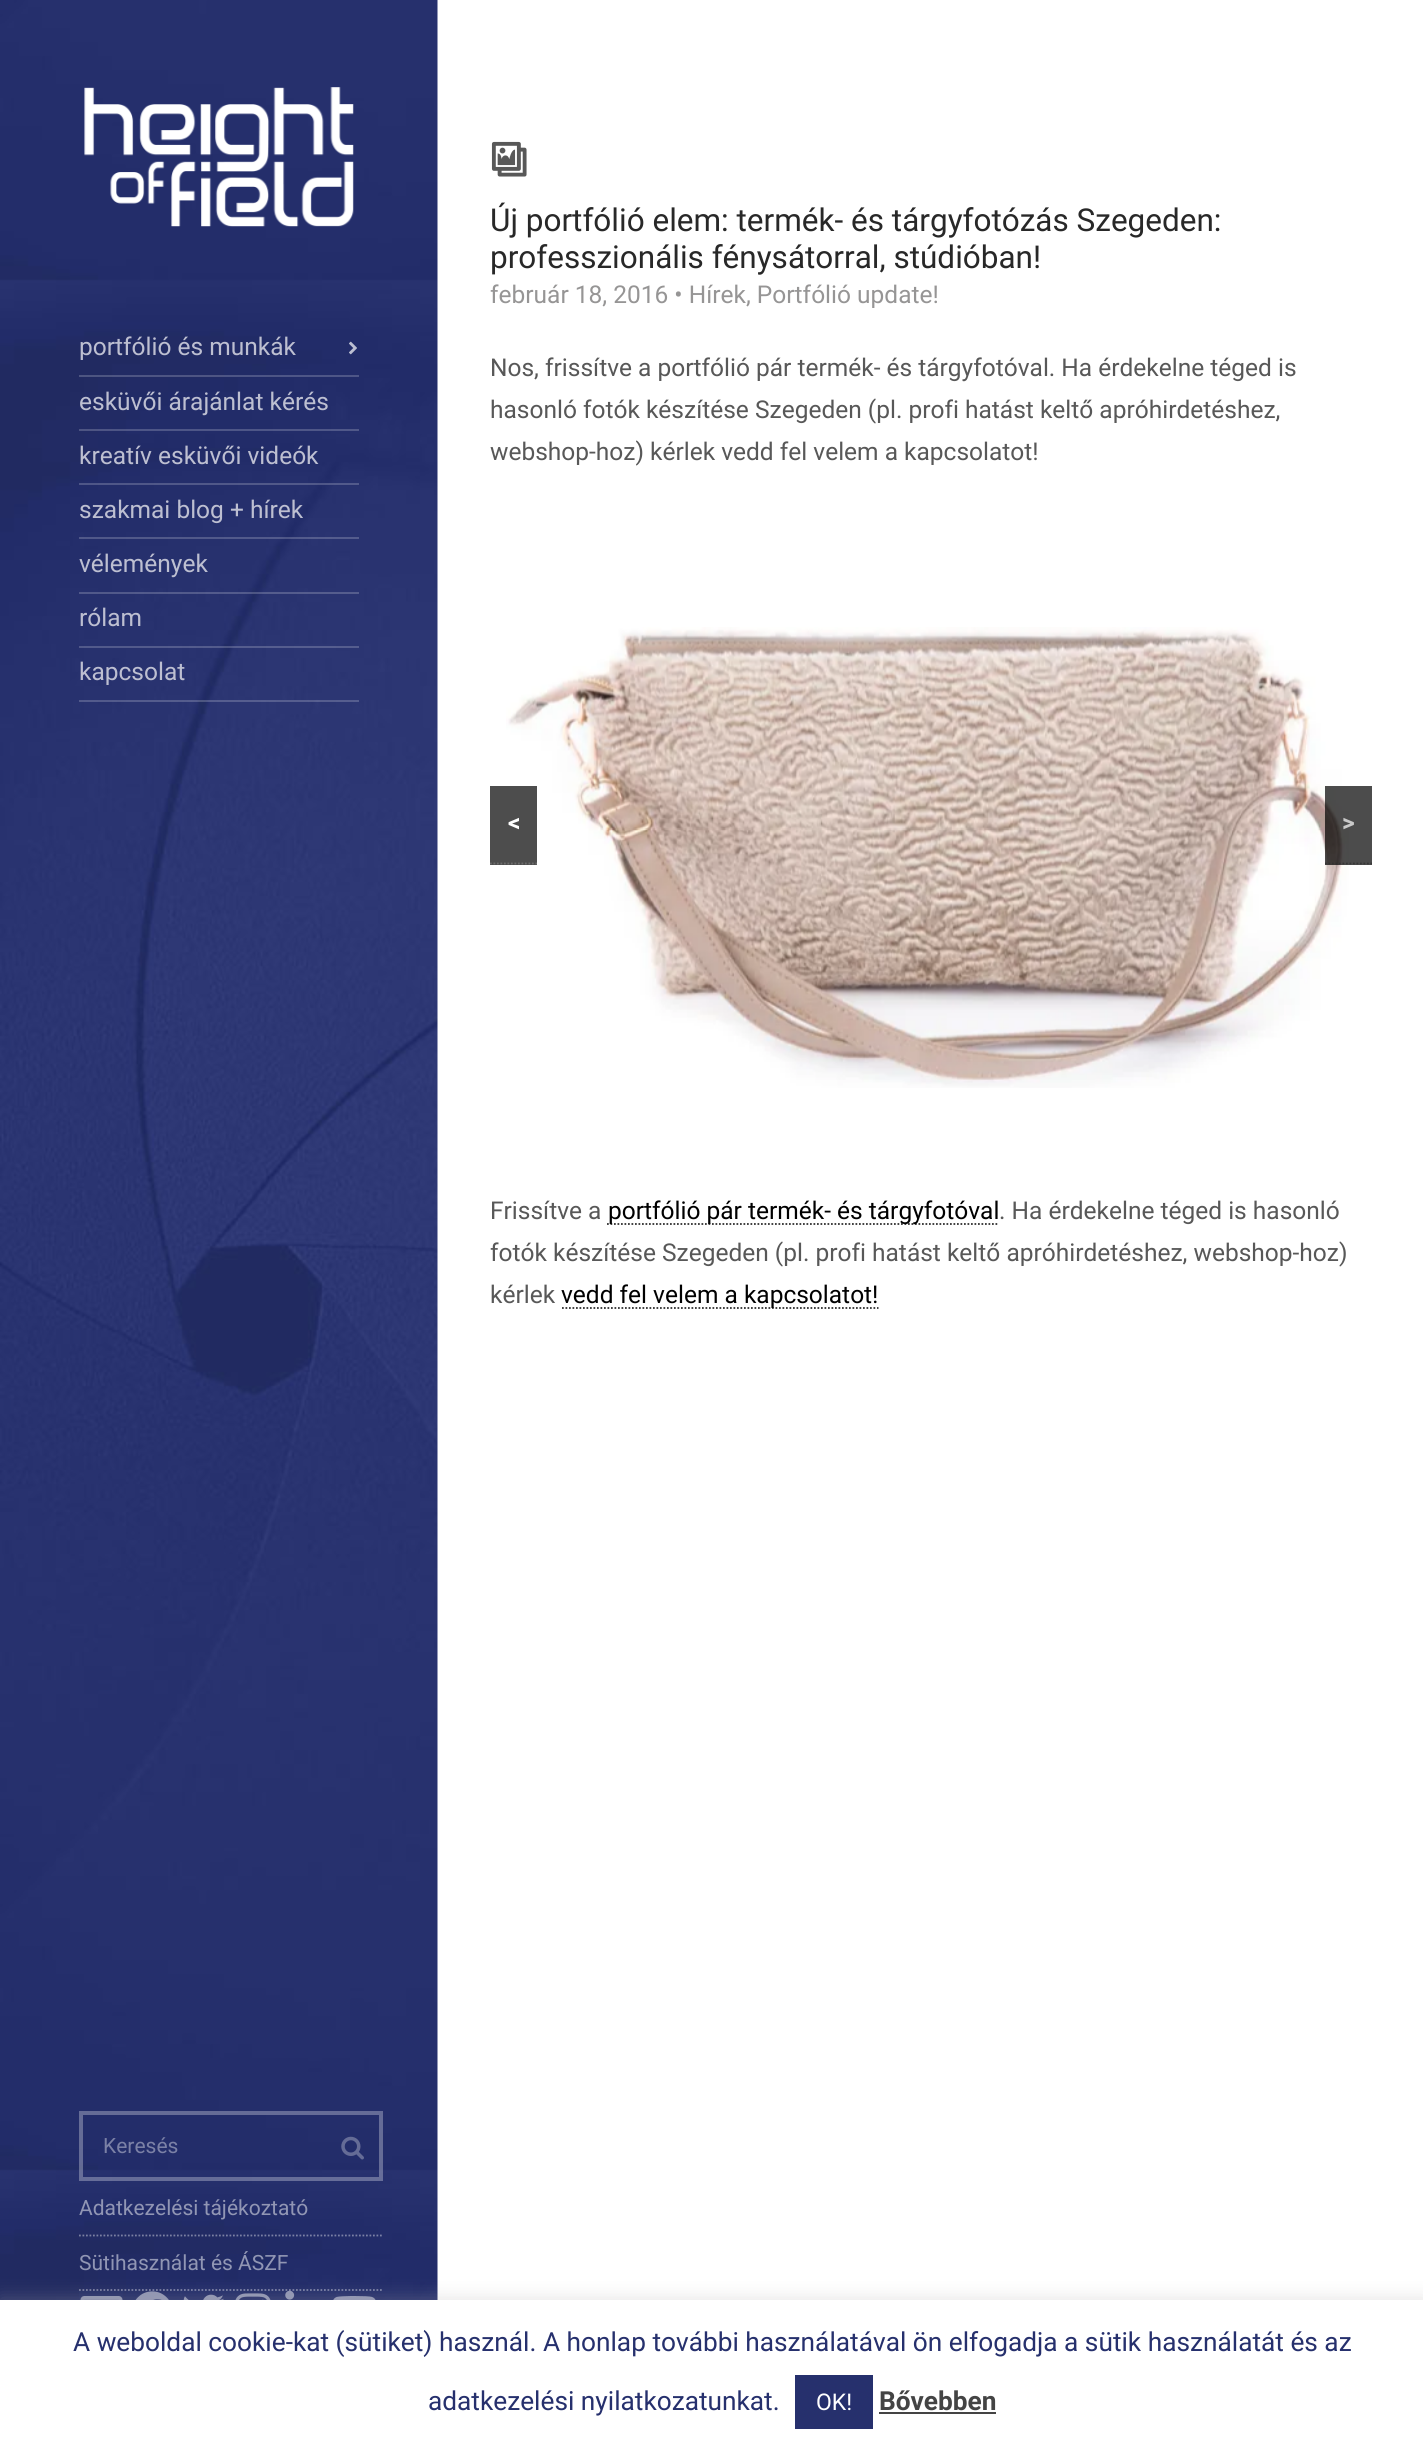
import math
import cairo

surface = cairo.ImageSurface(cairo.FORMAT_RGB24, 1423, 2450)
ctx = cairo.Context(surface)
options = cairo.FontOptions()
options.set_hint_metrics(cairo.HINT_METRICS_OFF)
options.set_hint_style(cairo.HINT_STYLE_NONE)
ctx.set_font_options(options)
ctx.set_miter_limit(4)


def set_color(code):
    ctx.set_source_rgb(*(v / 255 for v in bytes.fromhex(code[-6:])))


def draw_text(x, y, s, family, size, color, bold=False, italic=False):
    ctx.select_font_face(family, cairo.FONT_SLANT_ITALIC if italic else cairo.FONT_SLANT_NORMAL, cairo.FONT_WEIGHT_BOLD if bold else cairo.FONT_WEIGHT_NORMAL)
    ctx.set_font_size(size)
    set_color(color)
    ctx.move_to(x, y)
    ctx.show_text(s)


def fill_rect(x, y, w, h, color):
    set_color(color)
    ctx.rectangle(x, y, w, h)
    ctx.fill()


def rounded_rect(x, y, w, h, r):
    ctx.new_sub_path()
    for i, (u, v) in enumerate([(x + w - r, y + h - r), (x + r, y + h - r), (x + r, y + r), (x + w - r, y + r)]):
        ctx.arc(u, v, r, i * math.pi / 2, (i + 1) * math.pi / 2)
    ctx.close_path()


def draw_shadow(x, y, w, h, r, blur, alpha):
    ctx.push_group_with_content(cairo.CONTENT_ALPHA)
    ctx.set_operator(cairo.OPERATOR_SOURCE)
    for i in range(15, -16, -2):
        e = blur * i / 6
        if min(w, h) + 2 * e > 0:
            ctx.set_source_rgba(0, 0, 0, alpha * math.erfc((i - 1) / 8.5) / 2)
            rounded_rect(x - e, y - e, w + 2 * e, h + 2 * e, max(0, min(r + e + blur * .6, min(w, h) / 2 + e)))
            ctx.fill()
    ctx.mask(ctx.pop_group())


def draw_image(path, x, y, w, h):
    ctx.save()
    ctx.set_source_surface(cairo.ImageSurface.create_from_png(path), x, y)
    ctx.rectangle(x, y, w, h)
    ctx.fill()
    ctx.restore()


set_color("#ffffff")
ctx.paint()
draw_image("assets/img1.png", 0, 0, 438, 2300)
draw_image("assets/img2.png", 84, 87, 270, 140)
ctx.set_source_rgba(1, 1, 1, 0.2)
ctx.rectangle(79, 375, 280, 2)
ctx.fill()
draw_text(79, 355, "portfólió és munkák", "Roboto", 24.5, "#bdbfd1")
draw_image("assets/img3.png", 349, 341, 8, 14)
ctx.set_source_rgba(1, 1, 1, 0.2)
ctx.rectangle(79, 429, 280, 2)
ctx.fill()
draw_text(79, 410, "esküvői árajánlat kérés", "Roboto", 24.5, "#bdbfd1")
ctx.set_source_rgba(1, 1, 1, 0.2)
ctx.rectangle(79, 483, 280, 2)
ctx.fill()
draw_text(79, 464, "kreatív esküvői videók", "Roboto", 24.5, "#bdbfd1")
ctx.set_source_rgba(1, 1, 1, 0.2)
ctx.rectangle(79, 537, 280, 2)
ctx.fill()
draw_text(79, 518, "szakmai blog + hírek", "Roboto", 24.5, "#bdbfd1")
ctx.set_source_rgba(1, 1, 1, 0.2)
ctx.rectangle(79, 592, 280, 2)
ctx.fill()
draw_text(79, 572, "vélemények", "Roboto", 24.5, "#bdbfd1")
ctx.set_source_rgba(1, 1, 1, 0.2)
ctx.rectangle(79, 646, 280, 2)
ctx.fill()
draw_text(79, 626, "rólam", "Roboto", 24.5, "#bdbfd1")
ctx.set_source_rgba(1, 1, 1, 0.2)
ctx.rectangle(79, 700, 280, 2)
ctx.fill()
draw_text(79, 680, "kapcsolat", "Roboto", 24.5, "#bdbfd1")
ctx.rectangle(81, 2113, 300, 66)
ctx.set_source_rgba(1, 1, 1, 0.3)
ctx.set_line_width(4)
ctx.stroke()
draw_text(103, 2153, "Keresés", "Roboto", 21, "#7b81a6")
draw_image("assets/img4.png", 341, 2136, 23, 24)
ctx.new_path()
ctx.move_to(79, 2235.5)
ctx.line_to(383, 2235.5)
ctx.set_source_rgba(1, 1, 1, 0.4)
ctx.set_line_width(1.8)
ctx.set_dash([1.75, 1.75])
ctx.stroke()
draw_text(79, 2215, "Adatkezelési tájékoztató", "Roboto", 21, "#9196b4")
ctx.new_path()
ctx.move_to(79, 2290)
ctx.line_to(383, 2290)
ctx.set_source_rgba(1, 1, 1, 0.4)
ctx.stroke()
draw_text(79, 2270, "Sütihasználat és ÁSZF", "Roboto", 21, "#9196b4")
ctx.set_source_rgba(0.145, 0.188, 0.42, 0.5)
ctx.rectangle(79, 2291, 44, 9)
ctx.fill()
draw_image("assets/img5.png", 80, 2296, 43, 4)
draw_image("assets/img6.png", 135, 2291, 34, 9)
fill_rect(180, 2291, 2, 5, "#232e6a")
draw_image("assets/img7.png", 183, 2294, 41, 6)
draw_image("assets/img8.png", 235, 2293, 36, 7)
draw_image("assets/img9.png", 285, 2290, 10, 10)
draw_image("assets/img10.png", 333, 2296, 43, 4)
draw_image("assets/img11.png", 491, 141, 36, 36)
draw_text(490, 231, "Új portfólió elem: termék- és tárgyfotózás Szegeden:", "Roboto", 31.5, "#282828")
draw_text(490, 268, "professzionális fénysátorral, stúdióban!", "Roboto", 31.5, "#282828")
draw_text(490, 303, "február 18, 2016 • Hírek, Portfólió update!", "Roboto", 24.5, "#969595")
draw_text(490, 376, "Nos, frissítve a portfólió pár termék- és tárgyfotóval. Ha érdekelne téged is", "Roboto", 24.5, "#585858")
draw_text(490, 418, "hasonló fotók készítése Szegeden (pl. profi hatást keltő apróhirdetéshez,", "Roboto", 24.5, "#585858")
draw_text(490, 460, "webshop-hoz) kérlek vedd fel velem a kapcsolatot!", "Roboto", 24.5, "#585858")
draw_image("assets/img12.png", 506, 627, 843, 461)
fill_rect(490, 786, 47, 79, "#4d4d4d")
ctx.new_path()
ctx.move_to(490, 863.5)
ctx.line_to(537, 863.5)
set_color("#6d6d6d")
ctx.stroke()
draw_text(508, 831, "<", "Roboto", 24.5, "#ffffff", bold=True)
ctx.set_source_rgba(0, 0, 0, 0.7)
ctx.rectangle(1325, 786, 47, 79)
ctx.fill()
ctx.new_path()
ctx.move_to(1325, 863.5)
ctx.line_to(1372, 863.5)
ctx.set_source_rgba(0.184, 0.184, 0.184, 0.7)
ctx.stroke()
draw_text(1342, 831, ">", "Roboto", 24.5, "#c9c9c9", bold=True)
draw_text(490, 1219, "Frissítve a", "Roboto", 24.5, "#585858")
ctx.new_path()
ctx.move_to(607, 1224)
ctx.line_to(999, 1224)
set_color("#2f2f2f")
ctx.stroke()
draw_text(608, 1219, "portfólió pár termék- és tárgyfotóval", "Roboto", 24.5, "#000000")
draw_text(999, 1219, ". Ha érdekelne téged is hasonló", "Roboto", 24.5, "#585858")
draw_text(490, 1261, "fotók készítése Szegeden (pl. profi hatást keltő apróhirdetéshez, webshop-hoz)", "Roboto", 24.5, "#585858")
draw_text(490, 1303, "kérlek", "Roboto", 24.5, "#585858")
ctx.new_path()
ctx.move_to(562, 1308)
ctx.line_to(878.5, 1308)
set_color("#2f2f2f")
ctx.stroke()
draw_text(561, 1303, "vedd fel velem a kapcsolatot!", "Roboto", 24.5, "#000000")
set_color("#acabab")
draw_shadow(0, 2298, 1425, 150, 0, 9, 0.3)
fill_rect(0, 2300, 1423, 150, "#ffffff")
draw_text(73, 2351, "A weboldal cookie-kat (sütiket) használ. A honlap további használatával ön elfogadja a sütik használatát és az", "Roboto", 26.25, "#26306d")
draw_text(428, 2410, "adatkezelési nyilatkozatunkat.", "Roboto", 26.25, "#26306d")
fill_rect(795, 2375, 78, 54, "#26306d")
draw_text(816, 2410, "OK!", "Roboto", 23, "#ffffff")
draw_text(879, 2410, "Bővebben", "Roboto", 26.25, "#444444", bold=True)
fill_rect(879, 2412, 117, 2, "#444444")
surface.write_to_png("output.png")
